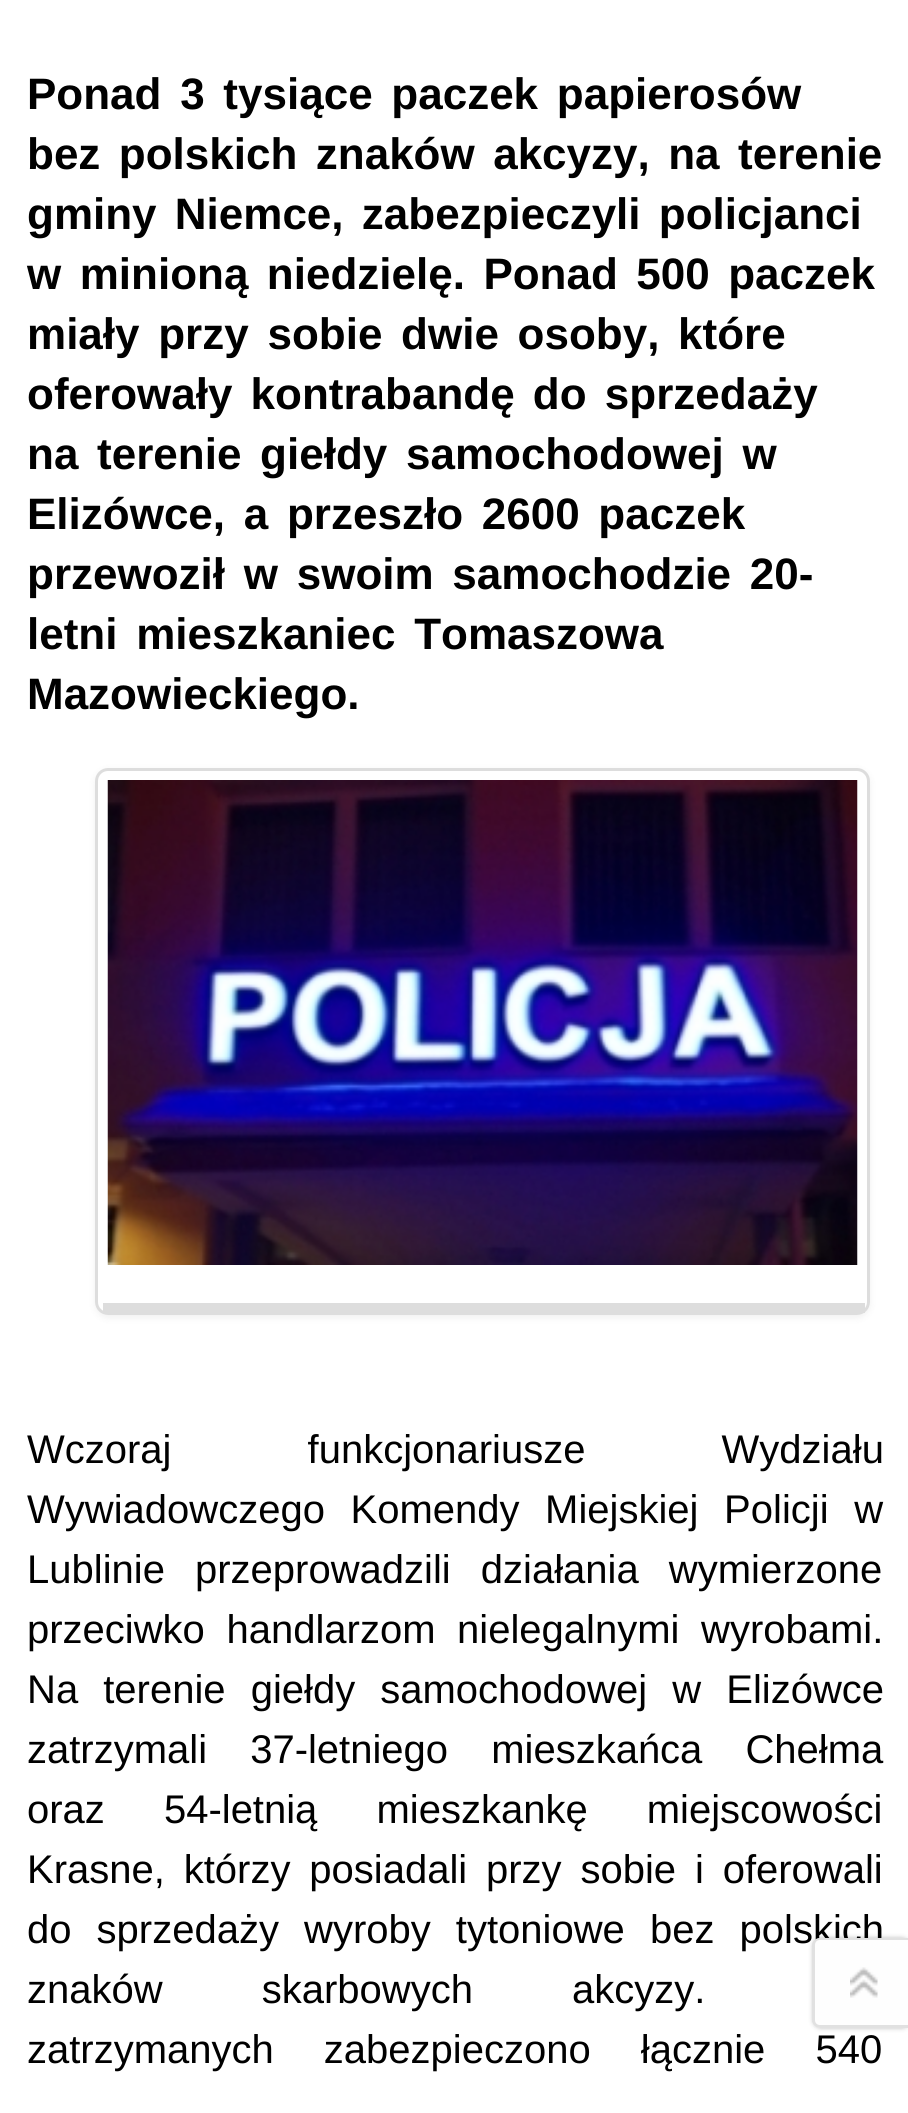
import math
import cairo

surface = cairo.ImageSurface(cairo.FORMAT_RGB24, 908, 2113)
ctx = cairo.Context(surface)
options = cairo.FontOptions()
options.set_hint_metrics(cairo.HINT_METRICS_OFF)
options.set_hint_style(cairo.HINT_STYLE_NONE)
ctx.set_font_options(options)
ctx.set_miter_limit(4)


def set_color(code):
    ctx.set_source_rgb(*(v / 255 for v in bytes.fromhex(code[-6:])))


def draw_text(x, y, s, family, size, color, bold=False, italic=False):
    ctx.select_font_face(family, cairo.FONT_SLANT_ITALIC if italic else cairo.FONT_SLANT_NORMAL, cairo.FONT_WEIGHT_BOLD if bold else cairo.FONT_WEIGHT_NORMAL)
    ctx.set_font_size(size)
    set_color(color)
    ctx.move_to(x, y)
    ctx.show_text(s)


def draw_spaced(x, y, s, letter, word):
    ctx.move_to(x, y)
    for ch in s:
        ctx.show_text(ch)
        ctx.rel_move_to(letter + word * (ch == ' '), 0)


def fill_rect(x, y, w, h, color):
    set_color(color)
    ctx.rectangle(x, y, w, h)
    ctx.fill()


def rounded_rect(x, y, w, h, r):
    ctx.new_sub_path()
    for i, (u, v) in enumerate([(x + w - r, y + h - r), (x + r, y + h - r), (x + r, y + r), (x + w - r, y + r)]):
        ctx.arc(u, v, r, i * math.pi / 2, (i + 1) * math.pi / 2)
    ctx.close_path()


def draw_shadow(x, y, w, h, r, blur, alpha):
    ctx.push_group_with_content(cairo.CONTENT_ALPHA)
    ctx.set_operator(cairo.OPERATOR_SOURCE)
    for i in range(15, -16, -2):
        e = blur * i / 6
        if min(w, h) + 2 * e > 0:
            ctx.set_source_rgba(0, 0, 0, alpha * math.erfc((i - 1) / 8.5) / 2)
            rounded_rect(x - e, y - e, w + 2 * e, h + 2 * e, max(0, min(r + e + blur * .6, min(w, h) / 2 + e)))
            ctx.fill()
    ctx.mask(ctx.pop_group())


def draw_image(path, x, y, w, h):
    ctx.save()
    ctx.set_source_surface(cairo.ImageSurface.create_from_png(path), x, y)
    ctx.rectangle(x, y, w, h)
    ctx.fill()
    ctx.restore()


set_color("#ffffff")
ctx.paint()
ctx.select_font_face("Liberation Sans", cairo.FONT_SLANT_NORMAL, cairo.FONT_WEIGHT_BOLD)
ctx.set_font_size(44)
set_color("#000000")
draw_spaced(27, 109, "Ponad 3 tysiące paczek papierosów", 0, 6.5)
draw_spaced(27, 169, "bez polskich znaków akcyzy, na terenie", 0, 6.25)
draw_spaced(27, 229, "gminy Niemce, zabezpieczyli policjanci", 0, 6)
draw_spaced(27, 289, "w minioną niedzielę. Ponad 500 paczek", 0, 6.25)
draw_spaced(27, 349, "miały przy sobie dwie osoby, które", 0, 6.5)
draw_spaced(27, 409, "oferowały kontrabandę do sprzedaży", 0, 6)
draw_spaced(27, 469, "na terenie giełdy samochodowej w", 0, 6.5)
draw_spaced(27, 529, "Elizówce, a przeszło 2600 paczek", 0, 6.5)
draw_spaced(27, 589, "przewoził w swoim samochodzie 20-", 0, 6.5)
draw_spaced(27, 649, "letni mieszkaniec Tomaszowa", 0, 6.5)
draw_text(27, 709, "Mazowieckiego.", "Liberation Sans", 44, "#000000", bold=True)
ctx.save()
ctx.set_fill_rule(cairo.FILL_RULE_EVEN_ODD)
ctx.new_path()
ctx.move_to(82, 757)
ctx.line_to(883, 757)
ctx.line_to(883, 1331)
ctx.line_to(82, 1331)
ctx.close_path()
ctx.move_to(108, 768)
ctx.line_to(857, 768)
ctx.curve_to(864, 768, 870, 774, 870, 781)
ctx.line_to(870, 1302)
ctx.curve_to(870, 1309, 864, 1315, 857, 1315)
ctx.line_to(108, 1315)
ctx.curve_to(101, 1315, 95, 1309, 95, 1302)
ctx.line_to(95, 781)
ctx.curve_to(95, 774, 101, 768, 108, 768)
ctx.close_path()
ctx.clip()
set_color("#000000")
draw_shadow(95, 770, 775, 548, 13, 4, 0.06)
ctx.restore()
rounded_rect(96.5, 769.5, 772, 544, 11.5)
set_color("#dddddd")
ctx.set_line_width(3)
ctx.stroke()
fill_rect(103, 1303, 762, 10, "#dddddd")
draw_image("assets/img1.png", 107, 780, 751, 485)
ctx.select_font_face("Liberation Sans")
ctx.set_font_size(40)
set_color("#000000")
draw_spaced(27, 1463, "Wczoraj funkcjonariusze Wydziału", 0, 125)
draw_spaced(27, 1523, "Wywiadowczego Komendy Miejskiej Policji w", 0, 14.5)
draw_spaced(27, 1583, "Lublinie przeprowadzili działania wymierzone", 0, 19)
draw_spaced(27, 1643, "przeciwko handlarzom nielegalnymi wyrobami.", 0, 10.5)
draw_spaced(27, 1703, "Na terenie giełdy samochodowej w Elizówce", 0, 14)
draw_spaced(27, 1763, "zatrzymali 37-letniego mieszkańca Chełma", 0, 32)
draw_spaced(27, 1823, "oraz 54-letnią mieszkankę miejscowości", 0, 48)
draw_spaced(27, 1883, "Krasne, którzy posiadali przy sobie i oferowali", 0, 7.75)
draw_spaced(27, 1943, "do sprzedaży wyroby tytoniowe bez polskich", 0, 14)
draw_spaced(27, 2003, "znaków skarbowych akcyzy.", 0, 88)
draw_spaced(27, 2063, "zatrzymanych zabezpieczono łącznie 540", 0, 39)
set_color("#000000")
draw_shadow(813, 1938, 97, 90, 8, 2.5, 0.25)
set_color("#fefefe")
ctx.new_path()
ctx.move_to(821, 1938)
ctx.line_to(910, 1938)
ctx.line_to(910, 2028)
ctx.line_to(821, 2028)
ctx.curve_to(816.5, 2028, 813, 2024.5, 813, 2020)
ctx.line_to(813, 1946)
ctx.curve_to(813, 1941.5, 816.5, 1938, 821, 1938)
ctx.close_path()
ctx.fill()
set_color("#e1e1e1")
ctx.set_fill_rule(cairo.FILL_RULE_EVEN_ODD)
ctx.new_path()
ctx.move_to(820, 1938)
ctx.line_to(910, 1938)
ctx.line_to(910, 2028)
ctx.line_to(820, 2028)
ctx.curve_to(816, 2028, 812, 2024, 812, 2020)
ctx.line_to(812, 1945)
ctx.curve_to(812, 1941, 816, 1938, 820, 1938)
ctx.close_path()
ctx.move_to(820, 1940)
ctx.line_to(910, 1940)
ctx.line_to(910, 2025)
ctx.line_to(820, 2025)
ctx.curve_to(817, 2025, 815, 2023, 815, 2020)
ctx.line_to(815, 1945)
ctx.curve_to(815, 1942, 817, 1940, 820, 1940)
ctx.close_path()
ctx.fill()
draw_image("assets/img2.png", 850, 1967, 28, 31)
surface.write_to_png("output.png")
